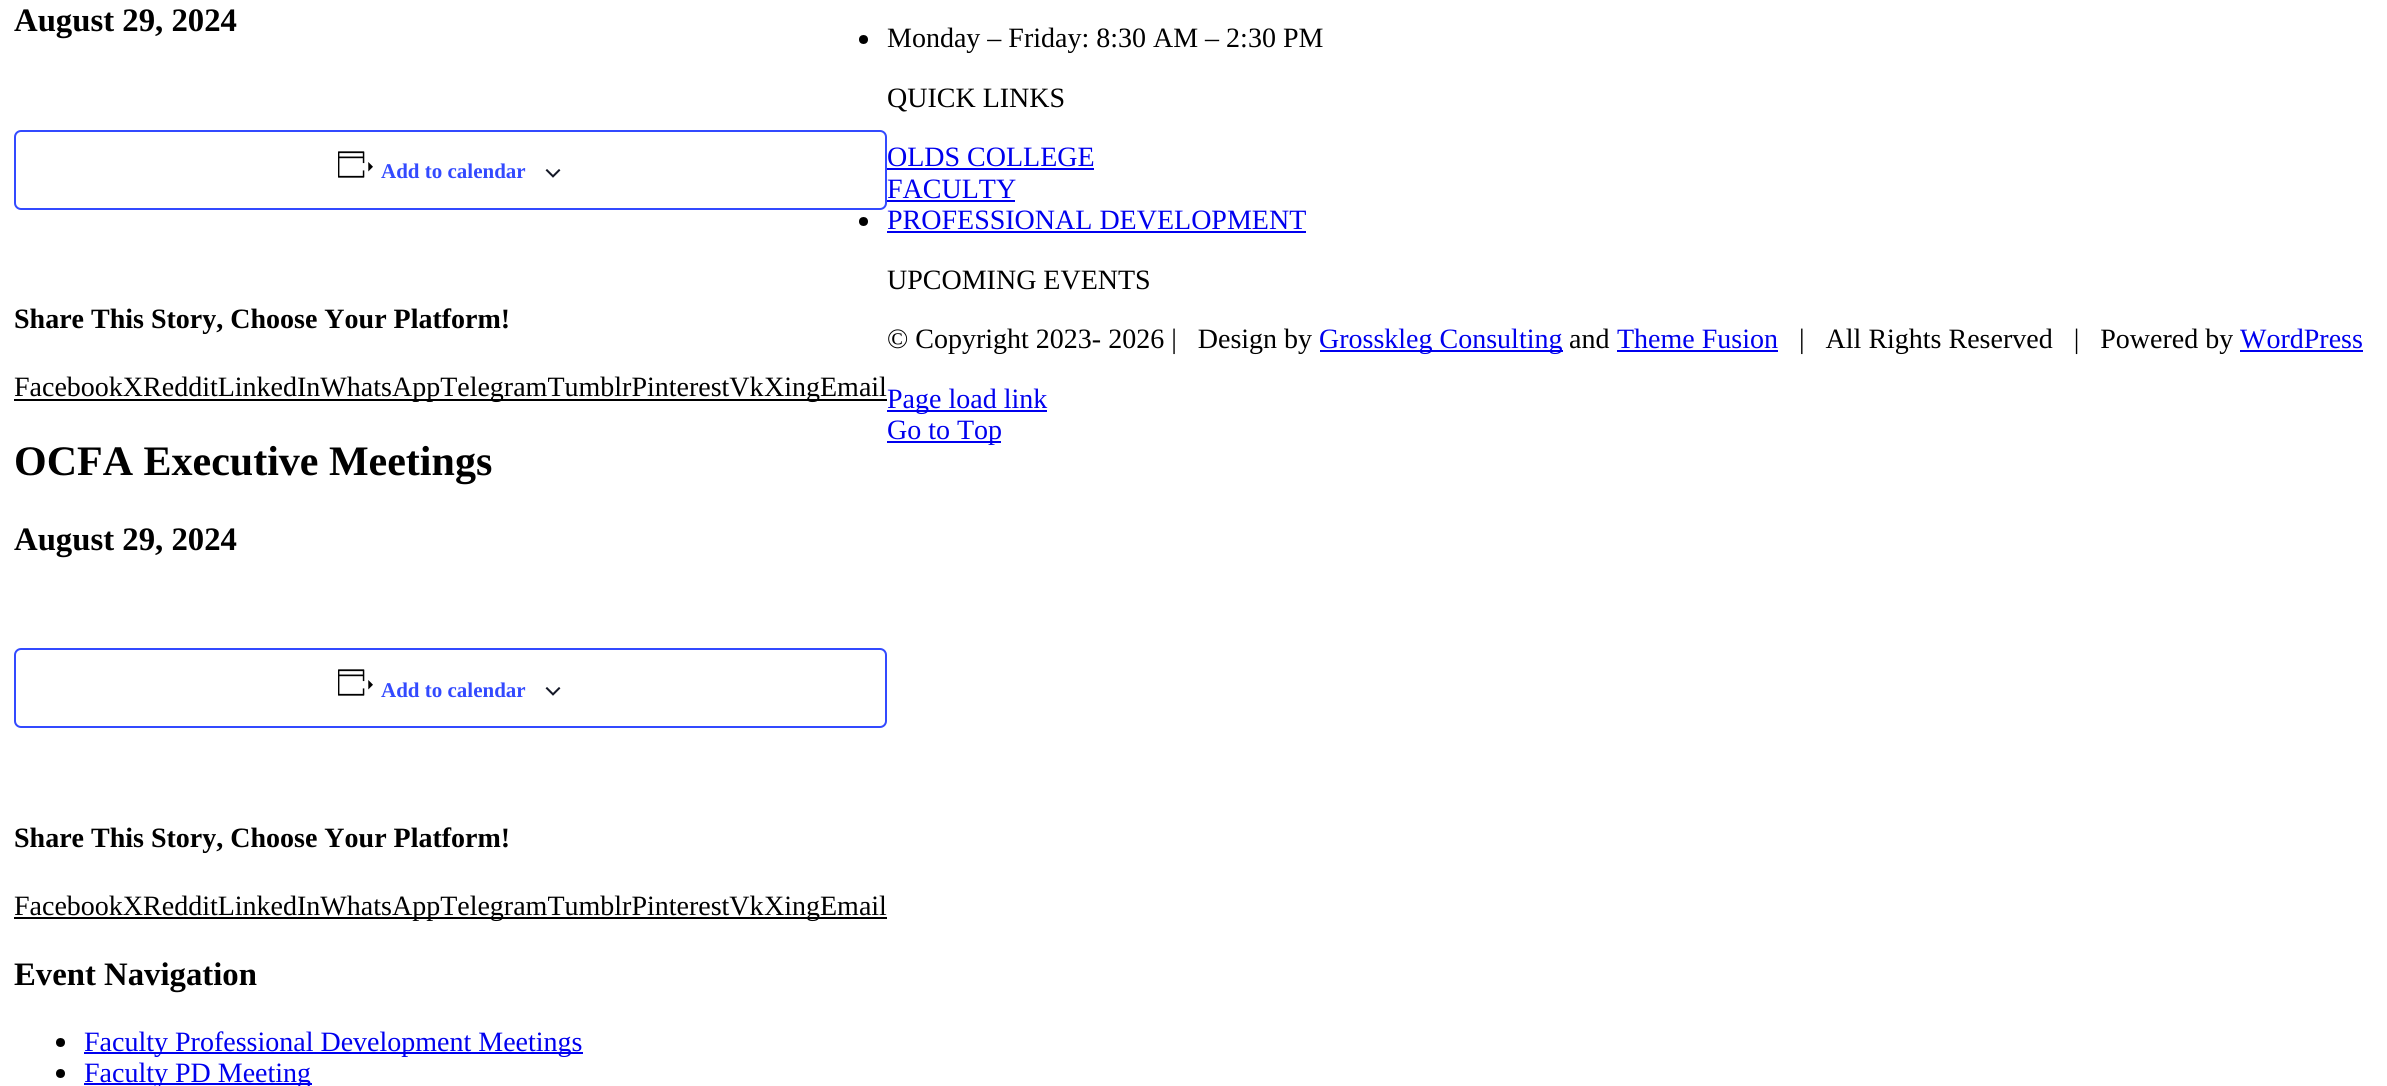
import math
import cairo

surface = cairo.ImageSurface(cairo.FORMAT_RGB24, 2387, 1086)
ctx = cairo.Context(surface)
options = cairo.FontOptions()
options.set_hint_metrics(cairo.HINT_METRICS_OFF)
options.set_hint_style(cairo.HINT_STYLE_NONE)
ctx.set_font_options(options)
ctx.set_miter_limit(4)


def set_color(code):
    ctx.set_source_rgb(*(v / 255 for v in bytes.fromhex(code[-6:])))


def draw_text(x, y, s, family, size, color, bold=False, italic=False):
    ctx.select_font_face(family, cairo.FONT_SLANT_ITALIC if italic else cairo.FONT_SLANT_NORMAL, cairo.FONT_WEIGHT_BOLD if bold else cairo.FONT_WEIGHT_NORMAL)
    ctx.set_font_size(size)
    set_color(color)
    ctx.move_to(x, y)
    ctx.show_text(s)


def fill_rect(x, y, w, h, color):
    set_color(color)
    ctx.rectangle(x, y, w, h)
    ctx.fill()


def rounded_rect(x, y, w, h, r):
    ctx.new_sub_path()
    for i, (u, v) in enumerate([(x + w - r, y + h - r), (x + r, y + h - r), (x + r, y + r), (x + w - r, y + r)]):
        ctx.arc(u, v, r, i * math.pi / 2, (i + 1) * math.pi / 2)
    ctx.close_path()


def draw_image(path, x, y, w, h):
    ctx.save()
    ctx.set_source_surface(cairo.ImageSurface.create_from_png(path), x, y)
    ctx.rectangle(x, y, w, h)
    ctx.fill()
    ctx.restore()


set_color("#ffffff")
ctx.paint()
draw_text(14, 31, "August 29, 2024", "Liberation Serif", 32.75, "#000000", bold=True)
rounded_rect(15, 131, 871, 78, 6)
set_color("#334aff")
ctx.stroke()
draw_image("assets/img1.png", 338, 151, 35, 27)
draw_text(381, 178, "Add to calendar", "Liberation Serif", 21, "#334aff", bold=True)
draw_image("assets/img2.png", 545, 169, 16, 9)
draw_text(14, 328, "Share This Story, Choose Your Platform!", "Liberation Serif", 28, "#000000", bold=True)
fill_rect(14, 399, 749, 2, "#000000")
draw_text(14, 396, "FacebookXRedditLinkedInWhatsAppTelegramTumblrPinterestVk", "Liberation Serif", 28, "#000000")
fill_rect(763, 399, 56, 2, "#000000")
draw_text(764, 396, "XingEmail", "Liberation Serif", 28, "#000000")
fill_rect(819, 399, 68, 2, "#000000")
draw_text(14, 475, "OCFA Executive Meetings", "Liberation Serif", 42, "#000000", bold=True)
draw_text(14, 550, "August 29, 2024", "Liberation Serif", 32.75, "#000000", bold=True)
rounded_rect(15, 649, 871, 78, 6)
set_color("#334aff")
ctx.stroke()
draw_image("assets/img1.png", 338, 669, 35, 27)
draw_text(381, 697, "Add to calendar", "Liberation Serif", 21, "#334aff", bold=True)
draw_image("assets/img2.png", 545, 687, 16, 9)
draw_text(14, 847, "Share This Story, Choose Your Platform!", "Liberation Serif", 28, "#000000", bold=True)
fill_rect(14, 917, 749, 2, "#000000")
draw_text(14, 915, "FacebookXRedditLinkedInWhatsAppTelegramTumblrPinterestVk", "Liberation Serif", 28, "#000000")
fill_rect(763, 917, 56, 2, "#000000")
draw_text(764, 915, "XingEmail", "Liberation Serif", 28, "#000000")
fill_rect(819, 917, 68, 2, "#000000")
draw_text(14, 985, "Event Navigation", "Liberation Serif", 32.75, "#000000", bold=True)
ctx.new_path()
ctx.arc(60.5, 1042.5, 4.5, 0, 2 * math.pi)
ctx.fill()
fill_rect(84, 1052, 499, 2, "#0000ee")
draw_text(84, 1051, "Faculty Professional Development Meetings", "Liberation Serif", 28, "#0000ee")
set_color("#000000")
ctx.new_path()
ctx.arc(60.5, 1073.5, 4.5, 0, 2 * math.pi)
ctx.fill()
fill_rect(84, 1083, 228, 2, "#0000ee")
draw_text(84, 1082, "Faculty PD Meeting", "Liberation Serif", 28, "#0000ee")
set_color("#000000")
ctx.new_path()
ctx.arc(863.5, 39.5, 4.5, 0, 2 * math.pi)
ctx.fill()
draw_text(887, 47, "Monday – Friday: 8:30 AM – 2:30 PM", "Liberation Serif", 28, "#000000")
draw_text(887, 107, "QUICK LINKS", "Liberation Serif", 28, "#000000")
draw_text(887, 166, "OLDS COLLEGE", "Liberation Serif", 28, "#0000ee")
fill_rect(887, 168, 207, 2, "#0000ee")
draw_text(887, 198, "FACULTY", "Liberation Serif", 28, "#0000ee")
fill_rect(887, 200, 128, 2, "#0000ee")
set_color("#000000")
ctx.new_path()
ctx.arc(863.5, 221.5, 4.5, 0, 2 * math.pi)
ctx.fill()
draw_text(887, 229, "PROFESSIONAL DEVELOPMENT", "Liberation Serif", 28, "#0000ee")
fill_rect(887, 231, 419, 2, "#0000ee")
draw_text(887, 289, "UPCOMING EVENTS", "Liberation Serif", 28, "#000000")
draw_text(887, 348, "© Copyright 2023- 2026 |   Design by", "Liberation Serif", 28, "#000000")
fill_rect(1320, 350, 243, 2, "#0000ee")
draw_text(1319, 348, "Grosskleg Consulting", "Liberation Serif", 28, "#0000ee")
draw_text(1569, 348, "and", "Liberation Serif", 28, "#000000")
draw_text(1617, 348, "Theme Fusion", "Liberation Serif", 28, "#0000ee")
fill_rect(1617, 350, 161, 2, "#0000ee")
draw_text(1799, 348, "|   All Rights Reserved   |   Powered by", "Liberation Serif", 28, "#000000")
draw_text(2240, 348, "WordPress", "Liberation Serif", 28, "#0000ee")
fill_rect(2240, 350, 123, 2, "#0000ee")
fill_rect(887, 410, 160, 2, "#0000ee")
draw_text(887, 408, "Page load link", "Liberation Serif", 28, "#0000ee")
fill_rect(887, 441, 114, 2, "#0000ee")
draw_text(887, 439, "Go to Top", "Liberation Serif", 28, "#0000ee")
surface.write_to_png("output.png")
